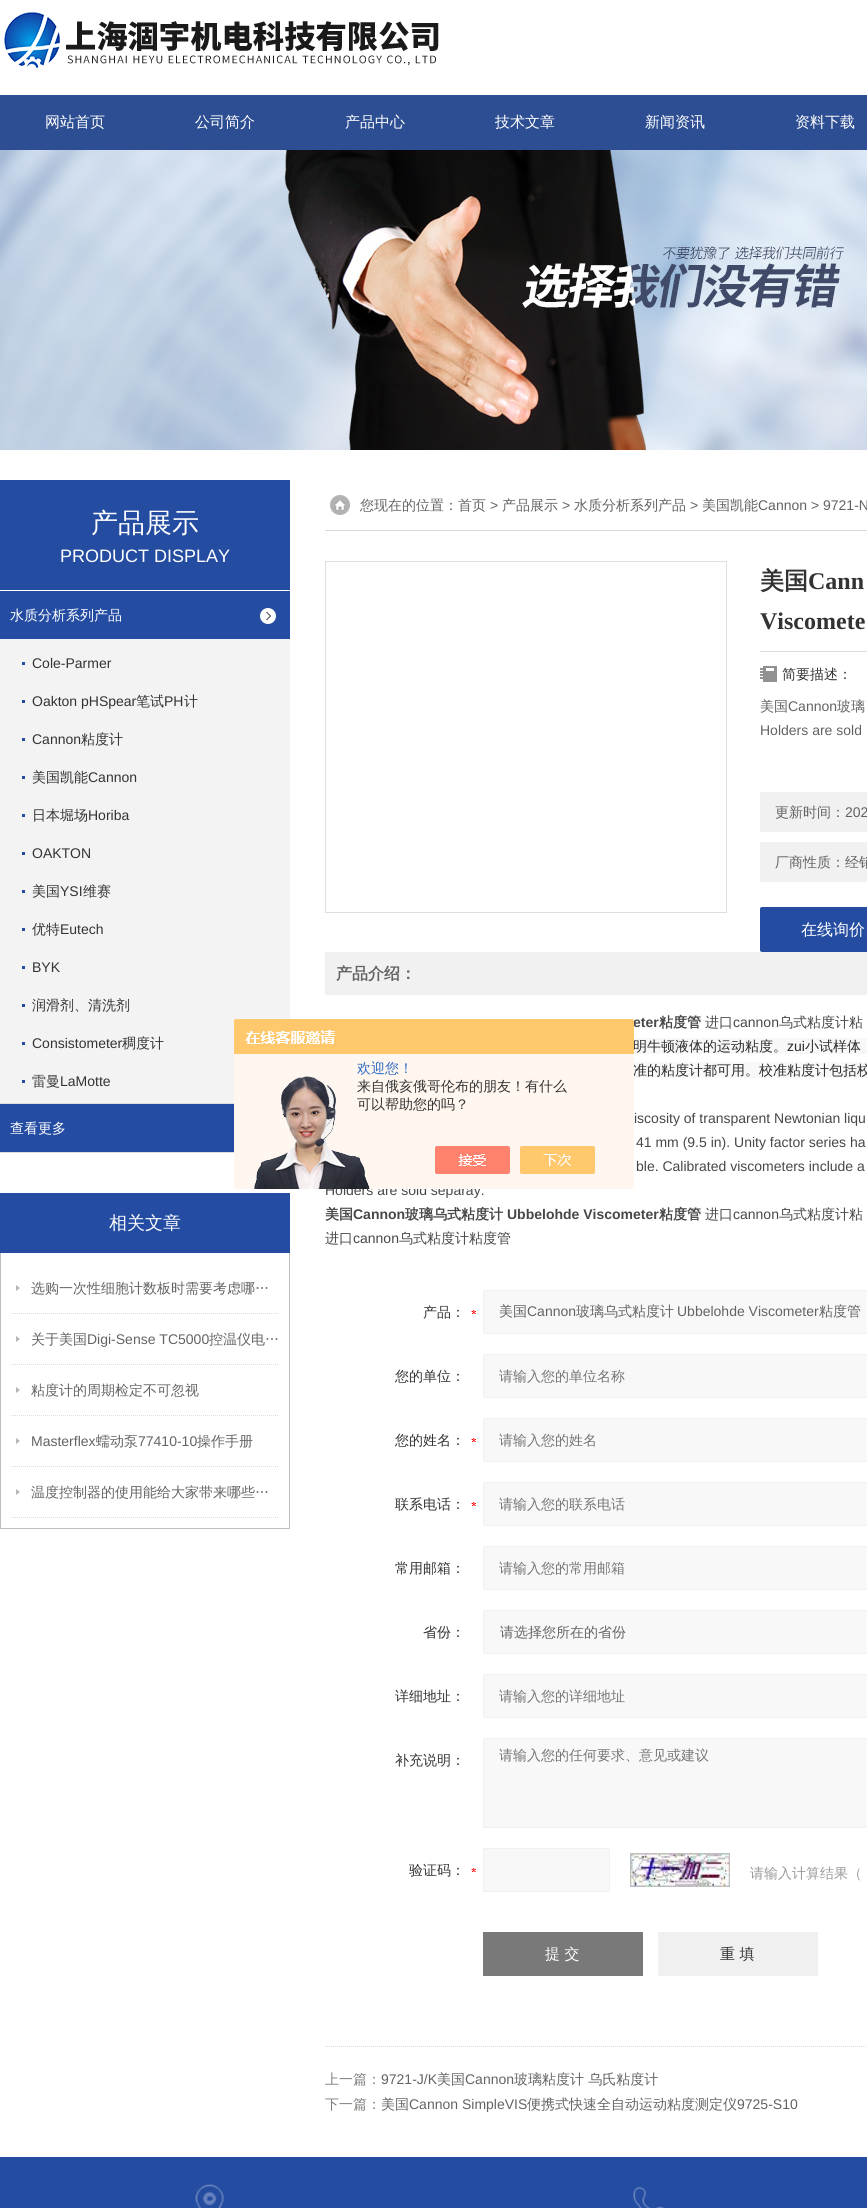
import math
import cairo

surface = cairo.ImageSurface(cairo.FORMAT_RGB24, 867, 2208)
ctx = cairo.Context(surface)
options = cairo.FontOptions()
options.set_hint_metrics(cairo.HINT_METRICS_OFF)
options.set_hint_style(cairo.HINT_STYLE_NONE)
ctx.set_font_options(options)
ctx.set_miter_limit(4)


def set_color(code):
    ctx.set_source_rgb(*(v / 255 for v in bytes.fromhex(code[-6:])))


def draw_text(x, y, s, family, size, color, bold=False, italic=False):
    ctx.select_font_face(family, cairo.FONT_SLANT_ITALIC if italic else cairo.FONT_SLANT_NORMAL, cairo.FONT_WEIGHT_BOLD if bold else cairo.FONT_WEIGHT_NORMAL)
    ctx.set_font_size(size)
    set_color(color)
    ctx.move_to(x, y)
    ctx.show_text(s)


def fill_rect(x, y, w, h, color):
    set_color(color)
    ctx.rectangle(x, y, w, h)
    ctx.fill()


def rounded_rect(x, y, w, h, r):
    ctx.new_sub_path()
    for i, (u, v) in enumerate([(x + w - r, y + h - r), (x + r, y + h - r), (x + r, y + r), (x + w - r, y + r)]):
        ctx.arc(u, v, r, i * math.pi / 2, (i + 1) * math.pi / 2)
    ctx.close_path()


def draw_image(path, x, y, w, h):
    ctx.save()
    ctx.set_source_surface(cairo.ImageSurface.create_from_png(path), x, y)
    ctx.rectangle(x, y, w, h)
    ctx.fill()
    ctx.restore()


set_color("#ffffff")
ctx.paint()
draw_image("assets/img1.png", 4, 12, 435, 56)
fill_rect(0, 95, 867, 55, "#2d4e93")
draw_text(45, 127, "网站首页", "WenQuanYi Zen Hei Medium", 15, "#ffffff")
draw_text(195, 127, "公司简介", "WenQuanYi Zen Hei Medium", 15, "#ffffff")
draw_text(345, 127, "产品中心", "WenQuanYi Zen Hei Medium", 15, "#ffffff")
draw_text(495, 127, "技术文章", "WenQuanYi Zen Hei Medium", 15, "#ffffff")
draw_text(645, 127, "新闻资讯", "WenQuanYi Zen Hei Medium", 15, "#ffffff")
draw_text(795, 127, "资料下载", "WenQuanYi Zen Hei Medium", 15, "#ffffff")
draw_image("assets/img2.png", 0, 150, 867, 300)
fill_rect(0, 480, 290, 110, "#244ca1")
draw_text(91, 532, "产品展示", "WenQuanYi Zen Hei Medium", 27, "#ffffff")
draw_text(60, 562, "PRODUCT DISPLAY", "Liberation Sans", 18, "#ffffff")
fill_rect(0, 591, 290, 48, "#244ca3")
draw_image("assets/img3.png", 260, 608, 16, 16)
fill_rect(0, 1103, 234, 1, "#dddddd")
draw_text(10, 620, "水质分析系列产品", "WenQuanYi Zen Hei Medium", 14, "#ffffff")
fill_rect(0, 639, 290, 464, "#f3f3f3")
fill_rect(22, 662, 3, 3, "#244ca3")
draw_text(32, 668, "Cole-Parmer", "Liberation Sans", 14, "#333333")
fill_rect(22, 700, 3, 3, "#244ca3")
draw_text(32, 706, "Oakton pHSpear", "Liberation Sans", 14, "#333333")
draw_text(136, 706, "笔试", "WenQuanYi Zen Hei Medium", 14, "#333333")
draw_text(164, 706, "PH", "Liberation Sans", 14, "#333333")
draw_text(184, 706, "计", "WenQuanYi Zen Hei Medium", 14, "#333333")
fill_rect(22, 738, 3, 3, "#244ca3")
draw_text(32, 744, "Cannon", "Liberation Sans", 14, "#333333")
draw_text(81, 744, "粘度计", "WenQuanYi Zen Hei Medium", 14, "#333333")
fill_rect(22, 776, 3, 3, "#244ca3")
draw_text(32, 782, "美国凯能", "WenQuanYi Zen Hei Medium", 14, "#333333")
draw_text(88, 782, "Cannon", "Liberation Sans", 14, "#333333")
fill_rect(22, 814, 3, 3, "#244ca3")
draw_text(32, 820, "日本堀场", "WenQuanYi Zen Hei Medium", 14, "#333333")
draw_text(88, 820, "Horiba", "Liberation Sans", 14, "#333333")
fill_rect(22, 852, 3, 3, "#244ca3")
draw_text(32, 858, "OAKTON", "Liberation Sans", 14, "#333333")
fill_rect(22, 890, 3, 3, "#244ca3")
draw_text(32, 896, "美国", "WenQuanYi Zen Hei Medium", 14, "#333333")
draw_text(60, 896, "YSI", "Liberation Sans", 14, "#333333")
draw_text(83, 896, "维赛", "WenQuanYi Zen Hei Medium", 14, "#333333")
fill_rect(22, 928, 3, 3, "#244ca3")
draw_text(32, 934, "优特", "WenQuanYi Zen Hei Medium", 14, "#333333")
draw_text(60, 934, "Eutech", "Liberation Sans", 14, "#333333")
fill_rect(22, 966, 3, 3, "#244ca3")
draw_text(32, 972, "BYK", "Liberation Sans", 14, "#333333")
fill_rect(22, 1004, 3, 3, "#244ca3")
draw_text(32, 1010, "润滑剂、清洗剂", "WenQuanYi Zen Hei Medium", 14, "#333333")
fill_rect(22, 1042, 3, 3, "#244ca3")
draw_text(32, 1048, "Consistometer", "Liberation Sans", 14, "#333333")
draw_text(122, 1048, "稠度计", "WenQuanYi Zen Hei Medium", 14, "#333333")
fill_rect(22, 1080, 3, 3, "#244ca3")
draw_text(32, 1086, "雷曼", "WenQuanYi Zen Hei Medium", 14, "#333333")
draw_text(60, 1086, "LaMotte", "Liberation Sans", 14, "#333333")
fill_rect(0, 1104, 234, 48, "#244ca3")
fill_rect(0, 1152, 234, 1, "#dddddd")
draw_text(10, 1133, "查看更多", "WenQuanYi Zen Hei Medium", 14, "#ffffff")
fill_rect(0, 1193, 290, 60, "#244ca3")
draw_text(109, 1229, "相关文章", "WenQuanYi Zen Hei Medium", 18, "#ffffff")
fill_rect(289, 1253, 1, 276, "#bebebe")
fill_rect(0, 1528, 290, 1, "#bebebe")
fill_rect(0, 1253, 1, 276, "#bebebe")
draw_image("assets/img4.png", 16, 1285, 4, 6)
ctx.new_path()
ctx.move_to(11, 1313.5)
ctx.line_to(279, 1313.5)
set_color("#dddddd")
ctx.set_line_width(1)
ctx.set_dash([1, 1])
ctx.stroke()
draw_text(31, 1293, "选购一次性细胞计数板时需要考虑哪…", "WenQuanYi Zen Hei Medium", 14, "#636363")
draw_image("assets/img4.png", 16, 1336, 4, 6)
ctx.new_path()
ctx.move_to(11, 1364.5)
ctx.line_to(279, 1364.5)
set_color("#dddddd")
ctx.stroke()
draw_text(31, 1344, "关于美国", "WenQuanYi Zen Hei Medium", 14, "#636363")
draw_text(87, 1344, "Digi-Sense TC5000", "Liberation Sans", 14, "#636363")
draw_text(209, 1344, "控温仪电…", "WenQuanYi Zen Hei Medium", 14, "#636363")
draw_image("assets/img4.png", 16, 1387, 4, 6)
ctx.new_path()
ctx.move_to(11, 1415.5)
ctx.line_to(279, 1415.5)
set_color("#dddddd")
ctx.stroke()
draw_text(31, 1395, "粘度计的周期检定不可忽视", "WenQuanYi Zen Hei Medium", 14, "#636363")
draw_image("assets/img4.png", 16, 1438, 4, 6)
ctx.new_path()
ctx.move_to(11, 1466.5)
ctx.line_to(279, 1466.5)
set_color("#dddddd")
ctx.stroke()
draw_text(31, 1446, "Masterflex", "Liberation Sans", 14, "#636363")
draw_text(96, 1446, "蠕动泵", "WenQuanYi Zen Hei Medium", 14, "#636363")
draw_text(138, 1446, "77410-10", "Liberation Sans", 14, "#636363")
draw_text(197, 1446, "操作手册", "WenQuanYi Zen Hei Medium", 14, "#636363")
draw_image("assets/img4.png", 16, 1489, 4, 6)
ctx.new_path()
ctx.move_to(11, 1517.5)
ctx.line_to(279, 1517.5)
set_color("#dddddd")
ctx.stroke()
draw_text(31, 1497, "温度控制器的使用能给大家带来哪些…", "WenQuanYi Zen Hei Medium", 14, "#636363")
fill_rect(325, 530, 542, 1, "#d9d9d9")
draw_image("assets/img5.png", 330, 495, 20, 20)
draw_text(360, 510, "您现在的位置：首页", "WenQuanYi Zen Hei Medium", 14, "#636363")
draw_text(490, 510, ">", "Liberation Sans", 14, "#636363")
draw_text(502, 510, "产品展示", "WenQuanYi Zen Hei Medium", 14, "#636363")
draw_text(562, 510, ">", "Liberation Sans", 14, "#636363")
draw_text(574, 510, "水质分析系列产品", "WenQuanYi Zen Hei Medium", 14, "#636363")
draw_text(690, 510, ">", "Liberation Sans", 14, "#636363")
draw_text(702, 510, "美国凯能", "WenQuanYi Zen Hei Medium", 14, "#636363")
draw_text(758, 510, "Cannon > 9721-N", "Liberation Sans", 14, "#636363")
ctx.rectangle(325.5, 561.5, 401, 351)
set_color("#dfdfdf")
ctx.set_dash([])
ctx.stroke()
fill_rect(760, 651, 107, 1, "#dfdfdf")
draw_text(760, 589, "美国", "WenQuanYi Zen Hei", 24, "#333333", bold=True)
draw_text(808, 589, "Cann", "Liberation Serif", 24, "#333333", bold=True)
draw_text(760, 629, "Viscomete", "Liberation Serif", 24, "#333333", bold=True)
draw_image("assets/img6.png", 760, 666, 17, 16)
draw_text(782, 679, "简要描述：", "WenQuanYi Zen Hei Medium", 14, "#333333")
draw_text(760, 711, "美国", "WenQuanYi Zen Hei Medium", 14, "#636363")
draw_text(788, 711, "Cannon", "Liberation Sans", 14, "#636363")
draw_text(837, 711, "玻璃", "WenQuanYi Zen Hei Medium", 14, "#636363")
draw_text(760, 735, "Holders are sold", "Liberation Sans", 14, "#636363")
fill_rect(760, 792, 107, 40, "#f1f1f1")
draw_text(775, 817, "更新时间：", "WenQuanYi Zen Hei Medium", 14, "#636363")
draw_text(845, 817, "202", "Liberation Sans", 14, "#636363")
fill_rect(760, 842, 107, 40, "#f1f1f1")
draw_text(775, 867, "厂商性质：经销", "WenQuanYi Zen Hei Medium", 14, "#636363")
set_color("#244ca1")
rounded_rect(760, 907, 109, 45, 2)
ctx.fill()
draw_text(801, 935, "在线询价", "WenQuanYi Zen Hei Medium", 16, "#ffffff")
fill_rect(325, 952, 542, 43, "#f1f1f1")
draw_text(336, 979, "产品介绍：", "WenQuanYi Zen Hei", 16, "#636363", bold=True)
draw_text(633, 1027, "eter", "Liberation Sans", 14, "#474747", bold=True)
draw_text(659, 1027, "粘度管", "WenQuanYi Zen Hei", 14, "#474747", bold=True)
draw_text(705, 1027, "进口", "WenQuanYi Zen Hei Medium", 14, "#474747")
draw_text(733, 1027, "cannon", "Liberation Sans", 14, "#474747")
draw_text(779, 1027, "乌式粘度计粘", "WenQuanYi Zen Hei Medium", 14, "#474747")
fill_rect(634, 1038, 233, 16, "#f8f8f8")
draw_text(633, 1051, "明牛顿液体的运动粘度。", "WenQuanYi Zen Hei Medium", 14, "#2b2b2b")
draw_text(787, 1051, "zui", "Liberation Sans", 14, "#2b2b2b")
draw_text(805, 1051, "小试样体", "WenQuanYi Zen Hei Medium", 14, "#2b2b2b")
fill_rect(634, 1062, 233, 16, "#f8f8f8")
draw_text(633, 1075, "准的粘度计都可用。校准粘度计包括校", "WenQuanYi Zen Hei Medium", 14, "#2b2b2b")
draw_text(634, 1123, "iscosity of transparent Newtonian liqu", "Liberation Sans", 14, "#474747")
draw_text(636, 1147, "41 mm (9.5 in). Unity factor series ha", "Liberation Sans", 14, "#474747")
draw_text(636, 1171, "ble. Calibrated viscometers include a", "Liberation Sans", 14, "#474747")
draw_text(325, 1195, "Holders are sold separay.", "Liberation Sans", 14, "#474747")
draw_text(325, 1219, "美国", "WenQuanYi Zen Hei", 14, "#474747", bold=True)
draw_text(353, 1219, "Cannon", "Liberation Sans", 14, "#474747", bold=True)
draw_text(405, 1219, "玻璃乌式粘度计", "WenQuanYi Zen Hei", 14, "#474747", bold=True)
draw_text(507, 1219, "Ubbelohde Viscometer", "Liberation Sans", 14, "#474747", bold=True)
draw_text(659, 1219, "粘度管", "WenQuanYi Zen Hei", 14, "#474747", bold=True)
draw_text(705, 1219, "进口", "WenQuanYi Zen Hei Medium", 14, "#474747")
draw_text(733, 1219, "cannon", "Liberation Sans", 14, "#474747")
draw_text(779, 1219, "乌式粘度计粘", "WenQuanYi Zen Hei Medium", 14, "#474747")
draw_text(325, 1243, "进口", "WenQuanYi Zen Hei Medium", 14, "#474747")
draw_text(353, 1243, "cannon", "Liberation Sans", 14, "#474747")
draw_text(399, 1243, "乌式粘度计粘度管", "WenQuanYi Zen Hei Medium", 14, "#474747")
draw_image("assets/img7.png", 471, 1310, 5, 4)
draw_text(423, 1317, "产品：", "WenQuanYi Zen Hei Medium", 14, "#333333")
set_color("#f8f8f8")
ctx.rectangle(483.5, 1290.5, 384, 43)
ctx.fill_preserve()
set_color("#f1f1f1")
ctx.stroke()
draw_text(499, 1316, "美国", "WenQuanYi Zen Hei Medium", 14, "#636363")
draw_text(527, 1316, "Cannon", "Liberation Sans", 14, "#636363")
draw_text(576, 1316, "玻璃乌式粘度计", "WenQuanYi Zen Hei Medium", 14, "#636363")
draw_text(677, 1316, "Ubbelohde Viscometer", "Liberation Sans", 14, "#636363")
draw_text(819, 1316, "粘度管", "WenQuanYi Zen Hei Medium", 14, "#636363")
draw_text(395, 1381, "您的单位：", "WenQuanYi Zen Hei Medium", 14, "#333333")
set_color("#f8f8f8")
ctx.rectangle(483.5, 1354.5, 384, 43)
ctx.fill_preserve()
set_color("#f1f1f1")
ctx.stroke()
draw_text(499, 1381, "请输入您的单位名称", "WenQuanYi Zen Hei Medium", 14, "#757575")
draw_image("assets/img7.png", 471, 1438, 5, 4)
draw_text(395, 1445, "您的姓名：", "WenQuanYi Zen Hei Medium", 14, "#333333")
set_color("#f8f8f8")
ctx.rectangle(483.5, 1418.5, 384, 43)
ctx.fill_preserve()
set_color("#f1f1f1")
ctx.stroke()
draw_text(499, 1445, "请输入您的姓名", "WenQuanYi Zen Hei Medium", 14, "#757575")
draw_image("assets/img7.png", 471, 1502, 5, 4)
draw_text(395, 1509, "联系电话：", "WenQuanYi Zen Hei Medium", 14, "#333333")
set_color("#f8f8f8")
ctx.rectangle(483.5, 1482.5, 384, 43)
ctx.fill_preserve()
set_color("#f1f1f1")
ctx.stroke()
draw_text(499, 1509, "请输入您的联系电话", "WenQuanYi Zen Hei Medium", 14, "#757575")
draw_text(395, 1573, "常用邮箱：", "WenQuanYi Zen Hei Medium", 14, "#333333")
set_color("#f8f8f8")
ctx.rectangle(483.5, 1546.5, 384, 43)
ctx.fill_preserve()
set_color("#f1f1f1")
ctx.stroke()
draw_text(499, 1573, "请输入您的常用邮箱", "WenQuanYi Zen Hei Medium", 14, "#757575")
draw_text(423, 1637, "省份：", "WenQuanYi Zen Hei Medium", 14, "#333333")
set_color("#f8f8f8")
ctx.rectangle(483.5, 1610.5, 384, 43)
ctx.fill_preserve()
set_color("#f1f1f1")
ctx.stroke()
draw_text(500, 1637, "请选择您所在的省份", "WenQuanYi Zen Hei Medium", 14, "#636363")
draw_text(395, 1701, "详细地址：", "WenQuanYi Zen Hei Medium", 14, "#333333")
set_color("#f8f8f8")
ctx.rectangle(483.5, 1674.5, 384, 43)
ctx.fill_preserve()
set_color("#f1f1f1")
ctx.stroke()
draw_text(499, 1701, "请输入您的详细地址", "WenQuanYi Zen Hei Medium", 14, "#757575")
draw_text(395, 1765, "补充说明：", "WenQuanYi Zen Hei Medium", 14, "#333333")
set_color("#f8f8f8")
ctx.rectangle(483.5, 1738.5, 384, 89)
ctx.fill_preserve()
set_color("#f1f1f1")
ctx.stroke()
draw_text(499, 1760, "请输入您的任何要求、意见或建议", "WenQuanYi Zen Hei Medium", 14, "#757575")
draw_image("assets/img7.png", 471, 1868, 5, 4)
draw_text(409, 1875, "验证码：", "WenQuanYi Zen Hei Medium", 14, "#333333")
set_color("#f8f8f8")
ctx.rectangle(483.5, 1848.5, 126, 43)
ctx.fill_preserve()
set_color("#f1f1f1")
ctx.stroke()
draw_image("assets/img8.png", 630, 1853, 100, 34)
draw_text(750, 1878, "请输入计算结果（", "WenQuanYi Zen Hei Medium", 14, "#999999")
fill_rect(483, 1932, 160, 44, "#797979")
draw_text(545, 1959, "提 交", "WenQuanYi Zen Hei Medium", 15, "#ffffff")
fill_rect(658, 1932, 160, 44, "#f0f0f0")
draw_text(720, 1959, "重 填", "WenQuanYi Zen Hei Medium", 15, "#333333")
ctx.new_path()
ctx.move_to(325, 2046.5)
ctx.line_to(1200, 2046.5)
set_color("#dddddd")
ctx.set_dash([1, 1])
ctx.stroke()
draw_text(325, 2084, "上一篇：", "WenQuanYi Zen Hei Medium", 14, "#80817c")
draw_text(381, 2084, "9721-J/K", "Liberation Sans", 14, "#636363")
draw_text(437, 2084, "美国", "WenQuanYi Zen Hei Medium", 14, "#636363")
draw_text(465, 2084, "Cannon", "Liberation Sans", 14, "#636363")
draw_text(514, 2084, "玻璃粘度计 乌氏粘度计", "WenQuanYi Zen Hei Medium", 14, "#636363")
draw_text(325, 2109, "下一篇：", "WenQuanYi Zen Hei Medium", 14, "#80817c")
draw_text(381, 2109, "美国", "WenQuanYi Zen Hei Medium", 14, "#636363")
draw_text(409, 2109, "Cannon SimpleVIS", "Liberation Sans", 14, "#636363")
draw_text(527, 2109, "便携式快速全自动运动粘度测定仪", "WenQuanYi Zen Hei Medium", 14, "#636363")
draw_text(737, 2109, "9725-S10", "Liberation Sans", 14, "#636363")
draw_image("assets/img9.png", 234, 1019, 400, 170)
draw_text(357, 1073, "欢迎您！", "WenQuanYi Zen Hei Medium", 14, "#2e6ec6")
draw_text(357, 1091, "来自俄亥俄哥伦布的朋友！有什么", "WenQuanYi Zen Hei Medium", 14, "#333333")
draw_text(357, 1109, "可以帮助您的吗？", "WenQuanYi Zen Hei Medium", 14, "#333333")
fill_rect(0, 2157, 867, 51, "#244ca1")
draw_image("assets/img10.png", 195, 2184, 29, 24)
draw_image("assets/img11.png", 633, 2187, 31, 21)
surface.write_to_png("output.png")
